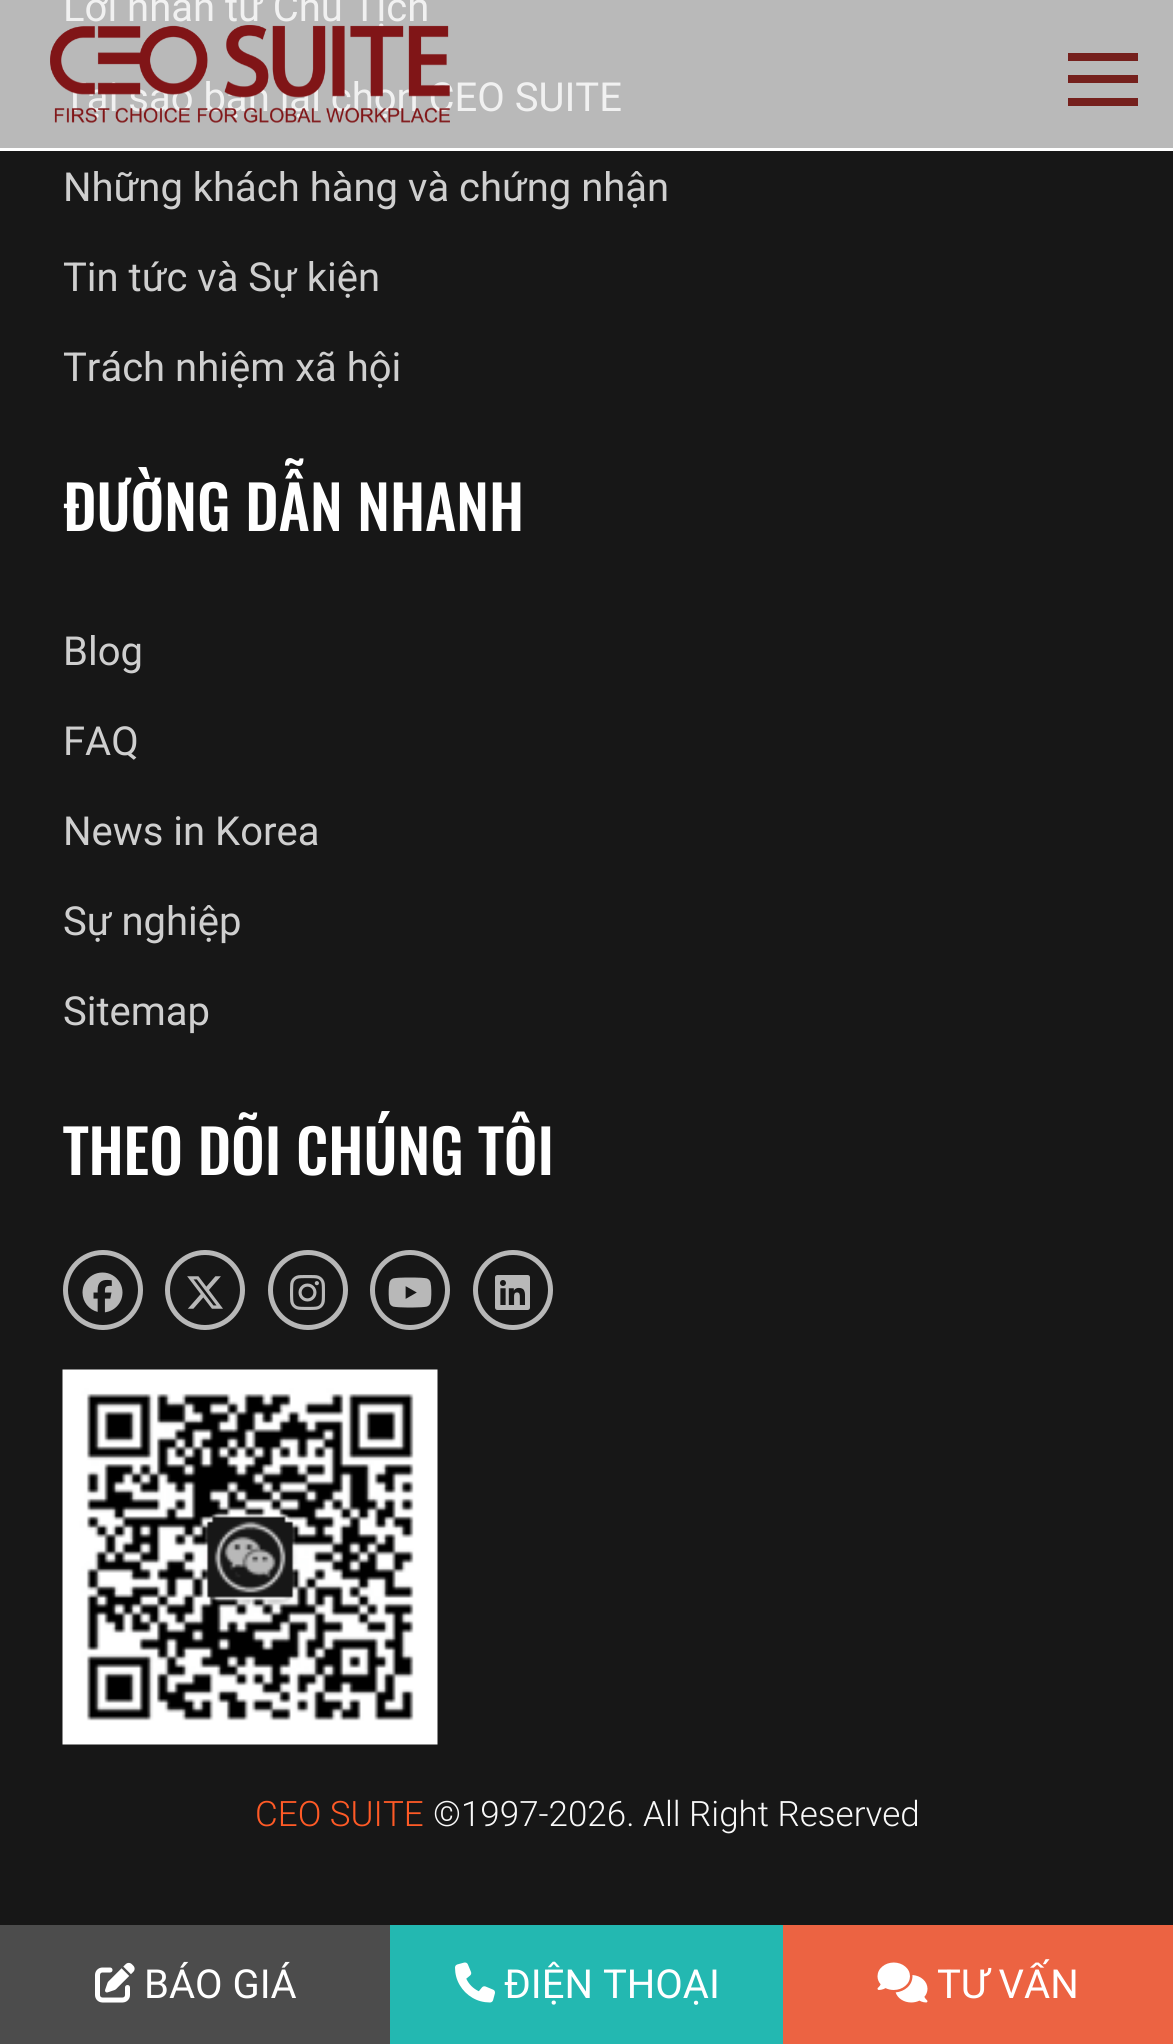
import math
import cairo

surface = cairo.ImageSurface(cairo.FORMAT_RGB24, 1173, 2044)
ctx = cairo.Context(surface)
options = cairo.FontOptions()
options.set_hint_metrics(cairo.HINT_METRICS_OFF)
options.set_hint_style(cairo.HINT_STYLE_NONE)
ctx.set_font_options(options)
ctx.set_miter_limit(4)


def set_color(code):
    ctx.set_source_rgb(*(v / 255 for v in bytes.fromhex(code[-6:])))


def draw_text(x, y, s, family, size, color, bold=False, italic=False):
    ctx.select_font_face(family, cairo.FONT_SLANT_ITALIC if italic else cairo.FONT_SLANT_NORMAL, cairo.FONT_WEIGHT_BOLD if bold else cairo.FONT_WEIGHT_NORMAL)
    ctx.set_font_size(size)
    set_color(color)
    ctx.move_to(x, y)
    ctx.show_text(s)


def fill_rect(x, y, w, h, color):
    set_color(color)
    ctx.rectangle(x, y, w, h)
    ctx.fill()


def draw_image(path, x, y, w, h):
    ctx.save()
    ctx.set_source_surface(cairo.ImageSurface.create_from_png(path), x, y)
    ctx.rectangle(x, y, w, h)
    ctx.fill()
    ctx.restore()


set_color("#171717")
ctx.paint()
fill_rect(0, 0, 1173, 148, "#b9b9b9")
draw_text(63, 21, "Lời nhắn từ Chủ Tịch", "Roboto", 40, "#f1f1f1")
draw_text(63, 111, "Tại sao bạn lại chọn CEO SUITE", "Roboto", 40, "#f1f1f1")
draw_text(63, 201, "Những khách hàng và chứng nhận", "Roboto", 40, "#cfcfcf")
draw_text(63, 291, "Tin tức và Sự kiện", "Roboto", 40, "#cfcfcf")
draw_text(63, 381, "Trách nhiệm xã hội", "Roboto", 40, "#cfcfcf")
draw_text(63, 531, "ĐƯỜNG DẪN NHANH", "Oswald Medium", 60, "#ffffff")
draw_text(63, 665, "Blog", "Roboto", 40, "#cfcfcf")
draw_text(63, 755, "FAQ", "Roboto", 40, "#cfcfcf")
draw_text(63, 845, "News in Korea", "Roboto", 40, "#cfcfcf")
draw_text(63, 935, "Sự nghiệp", "Roboto", 40, "#cfcfcf")
draw_text(63, 1025, "Sitemap", "Roboto", 40, "#cfcfcf")
draw_text(63, 1175, "THEO DÕI CHÚNG TÔI", "Oswald Medium", 60, "#ffffff")
ctx.new_path()
ctx.arc(103, 1290, 37.5, 0, 2 * math.pi)
set_color("#b8b8b8")
ctx.set_line_width(5)
ctx.stroke()
draw_image("assets/img1.png", 82, 1272, 41, 41)
ctx.arc(205, 1290, 37.5, 0, 2 * math.pi)
ctx.stroke()
draw_image("assets/img2.png", 187, 1276, 36, 33)
ctx.arc(308, 1290, 37.5, 0, 2 * math.pi)
ctx.stroke()
draw_image("assets/img3.png", 290, 1275, 35, 35)
ctx.arc(410, 1290, 37.5, 0, 2 * math.pi)
ctx.stroke()
draw_image("assets/img4.png", 388, 1277, 44, 31)
ctx.arc(513, 1290, 37.5, 0, 2 * math.pi)
ctx.stroke()
draw_image("assets/img5.png", 495, 1275, 35, 35)
draw_image("assets/img6.png", 62, 1369, 376, 376)
draw_text(255, 1826, "CEO SUITE", "Roboto Light", 35, "#ff5a26")
draw_text(433, 1826, "©1997-2026. All Right Reserved", "Roboto Light", 35, "#f9f9f9")
fill_rect(0, 148, 1173, 3, "#ffffff")
draw_image("assets/img7.png", 50, 25, 400, 98)
fill_rect(1068, 53, 70, 8, "#75201d")
fill_rect(1068, 75, 70, 8, "#75201d")
fill_rect(1068, 98, 70, 8, "#75201d")
fill_rect(0, 1925, 390, 119, "#4c4c4c")
draw_image("assets/img8.png", 95, 1962, 40, 41)
draw_text(144, 1998, "BÁO GIÁ", "Roboto", 40, "#ffffff")
fill_rect(390, 1925, 393, 119, "#23b8b1")
draw_image("assets/img9.png", 455, 1962, 40, 41)
draw_text(504, 1998, "ĐIỆN THOẠI", "Roboto", 40, "#ffffff")
fill_rect(783, 1925, 390, 119, "#ec6342")
draw_image("assets/img10.png", 877, 1962, 51, 41)
draw_text(937, 1998, "TƯ VẤN", "Roboto", 40, "#ffffff")
surface.write_to_png("output.png")
